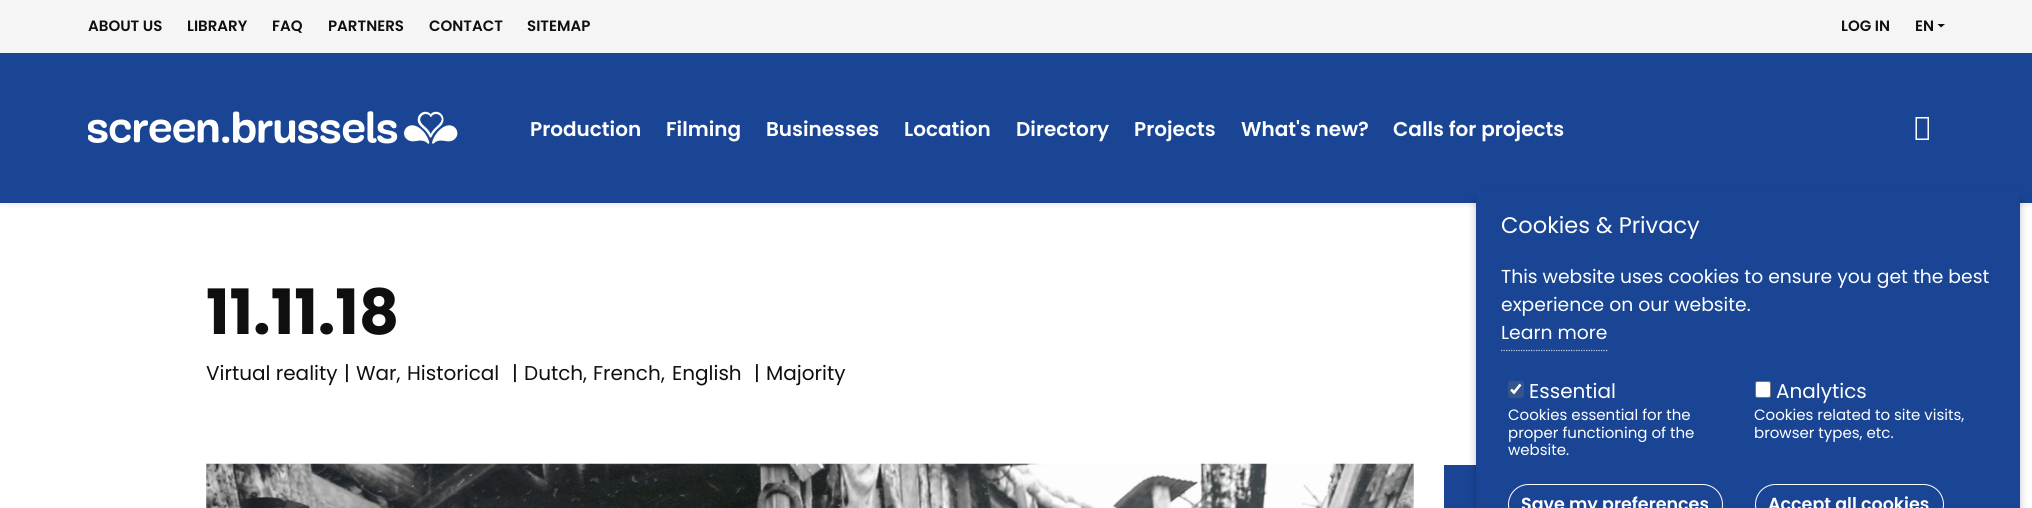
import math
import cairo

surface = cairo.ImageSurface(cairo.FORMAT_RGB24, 2032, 508)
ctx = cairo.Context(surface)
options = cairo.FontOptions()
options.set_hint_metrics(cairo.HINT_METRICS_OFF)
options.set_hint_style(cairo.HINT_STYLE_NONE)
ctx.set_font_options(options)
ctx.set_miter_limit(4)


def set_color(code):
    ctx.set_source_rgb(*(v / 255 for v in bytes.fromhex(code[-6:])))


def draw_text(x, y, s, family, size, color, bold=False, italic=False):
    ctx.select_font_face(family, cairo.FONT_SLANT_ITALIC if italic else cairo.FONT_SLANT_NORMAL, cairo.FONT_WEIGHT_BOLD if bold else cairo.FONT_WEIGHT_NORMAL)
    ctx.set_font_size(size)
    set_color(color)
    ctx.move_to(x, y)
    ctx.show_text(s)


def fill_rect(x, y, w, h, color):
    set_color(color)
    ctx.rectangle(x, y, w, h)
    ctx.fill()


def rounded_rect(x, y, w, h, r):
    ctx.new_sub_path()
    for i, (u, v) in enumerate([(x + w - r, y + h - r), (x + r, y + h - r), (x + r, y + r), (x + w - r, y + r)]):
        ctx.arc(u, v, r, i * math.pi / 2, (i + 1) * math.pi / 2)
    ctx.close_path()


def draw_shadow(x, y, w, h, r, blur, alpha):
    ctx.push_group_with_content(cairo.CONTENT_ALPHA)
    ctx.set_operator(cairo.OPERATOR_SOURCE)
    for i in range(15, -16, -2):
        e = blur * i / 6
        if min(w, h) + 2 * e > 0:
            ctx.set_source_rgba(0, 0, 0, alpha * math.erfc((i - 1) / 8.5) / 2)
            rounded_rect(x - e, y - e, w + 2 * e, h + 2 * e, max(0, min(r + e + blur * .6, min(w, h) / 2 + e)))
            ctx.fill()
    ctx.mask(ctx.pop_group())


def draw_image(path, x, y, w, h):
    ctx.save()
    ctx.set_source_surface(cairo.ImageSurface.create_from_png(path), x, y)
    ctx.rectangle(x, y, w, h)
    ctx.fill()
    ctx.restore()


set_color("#ffffff")
ctx.paint()
set_color("#000000")
draw_shadow(0, 3, 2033, 202, 0, 2.5, 0.08)
fill_rect(0, 0, 2032, 53, "#f5f5f5")
draw_text(88, 31, "ABOUT US", "Poppins SemiBold", 15, "#100f0f")
draw_text(187, 31, "LIBRARY", "Poppins SemiBold", 15, "#100f0f")
draw_text(272, 31, "FAQ", "Poppins SemiBold", 15, "#100f0f")
draw_text(328, 31, "PARTNERS", "Poppins SemiBold", 15, "#100f0f")
draw_text(429, 31, "CONTACT", "Poppins SemiBold", 15, "#100f0f")
draw_text(527, 31, "SITEMAP", "Poppins SemiBold", 15, "#100f0f")
draw_text(1841, 31, "LOG IN", "Poppins SemiBold", 15, "#100f0f")
draw_text(1915, 31, "EN", "Poppins SemiBold", 15, "#100f0f")
ctx.new_path()
ctx.move_to(1937.5, 24)
ctx.line_to(1945, 24)
ctx.line_to(1941, 27.5)
ctx.close_path()
ctx.fill()
fill_rect(0, 53, 2032, 150, "#194594")
draw_image("assets/img1.png", 88, 111, 370, 33)
draw_text(530, 136, "Production", "Poppins SemiBold", 20, "#ffffff")
draw_text(666, 136, "Filming", "Poppins SemiBold", 20, "#ffffff")
draw_text(766, 136, "Businesses", "Poppins SemiBold", 20, "#ffffff")
draw_text(904, 136, "Location", "Poppins SemiBold", 20, "#ffffff")
draw_text(1016, 136, "Directory", "Poppins SemiBold", 20, "#ffffff")
draw_text(1134, 136, "Projects", "Poppins SemiBold", 20, "#ffffff")
draw_text(1241, 136, "What's new?", "Poppins SemiBold", 20, "#ffffff")
draw_text(1393, 136, "Calls for projects", "Poppins SemiBold", 20, "#ffffff")
ctx.new_path()
ctx.move_to(1915.5, 140)
ctx.line_to(1915.5, 117)
ctx.line_to(1929, 117)
ctx.line_to(1929, 140)
ctx.close_path()
ctx.move_to(1917, 138.5)
ctx.line_to(1927.5, 138.5)
ctx.line_to(1927.5, 118.5)
ctx.line_to(1917, 118.5)
ctx.close_path()
ctx.fill()
draw_text(206, 334, "11.11.18", "Poppins", 62.5, "#100f0f", bold=True)
draw_text(206, 380, "Virtual reality", "Poppins", 20, "#100f0f")
draw_text(344, 380, "|", "Poppins", 20, "#100f0f")
draw_text(356, 380, "War,", "Poppins", 20, "#100f0f")
draw_text(407, 380, "Historical", "Poppins", 20, "#100f0f")
draw_text(512, 380, "|", "Poppins", 20, "#100f0f")
draw_text(524, 380, "Dutch", "Poppins", 20, "#100f0f")
draw_text(583, 380, ",", "Poppins", 20, "#100f0f")
draw_text(593, 380, "French", "Poppins", 20, "#100f0f")
draw_text(661, 380, ",", "Poppins", 20, "#100f0f")
draw_text(672, 380, "English", "Poppins", 20, "#100f0f")
draw_text(754, 380, "|", "Poppins", 20, "#100f0f")
draw_text(766, 380, "Majority", "Poppins", 20, "#100f0f")
draw_image("assets/img2.png", 206, 463, 1208, 45)
fill_rect(1444, 465, 32, 43, "#194594")
set_color("#000000")
draw_shadow(1476, 196, 544, 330, 6, 4, 0.25)
set_color("#194594")
rounded_rect(1476, 189, 544, 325, 6)
ctx.fill()
draw_text(1501, 233, "Cookies & Privacy", "Poppins", 22.5, "#ffffff")
draw_text(1501, 283, "This website uses cookies to ensure you get the best", "Poppins", 18.75, "#ffffff")
draw_text(1501, 311, "experience on our website.", "Poppins", 18.75, "#ffffff")
ctx.new_path()
ctx.move_to(1501, 350.5)
ctx.line_to(1607.5, 350.5)
set_color("#c6d1e4")
ctx.set_line_width(1.2)
ctx.set_dash([1.25, 1.25])
ctx.stroke()
draw_text(1501, 339, "Learn more", "Poppins", 18.75, "#ffffff")
set_color("#35548b")
rounded_rect(1508, 381, 16, 17, 2.5)
ctx.fill()
ctx.new_path()
ctx.move_to(1511, 389.5)
ctx.line_to(1514, 392.5)
ctx.line_to(1520.5, 384.5)
set_color("#ffffff")
ctx.set_line_width(2.6)
ctx.set_dash([])
ctx.stroke()
draw_text(1529, 398, "Essential", "Poppins", 20, "#ffffff")
draw_text(1508, 420, "Cookies essential for the", "Poppins", 15, "#ffffff")
draw_text(1508, 438, "proper functioning of the", "Poppins", 15, "#ffffff")
draw_text(1508, 455, "website.", "Poppins", 15, "#ffffff")
rounded_rect(1755.5, 381.5, 15, 16, 2)
ctx.fill_preserve()
set_color("#767676")
ctx.set_line_width(1)
ctx.stroke()
draw_text(1776, 398, "Analytics", "Poppins", 20, "#ffffff")
draw_text(1754, 420, "Cookies related to site visits,", "Poppins", 15, "#ffffff")
draw_text(1754, 438, "browser types, etc.", "Poppins", 15, "#ffffff")
rounded_rect(1508.5, 484.5, 214, 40, 20)
ctx.stroke()
draw_text(1521, 510, "Save my preferences", "Poppins SemiBold", 17.5, "#ffffff")
rounded_rect(1755.5, 484.5, 188, 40, 20)
ctx.stroke()
draw_text(1768, 510, "Accept all cookies", "Poppins SemiBold", 17.5, "#ffffff")
surface.write_to_png("output.png")
